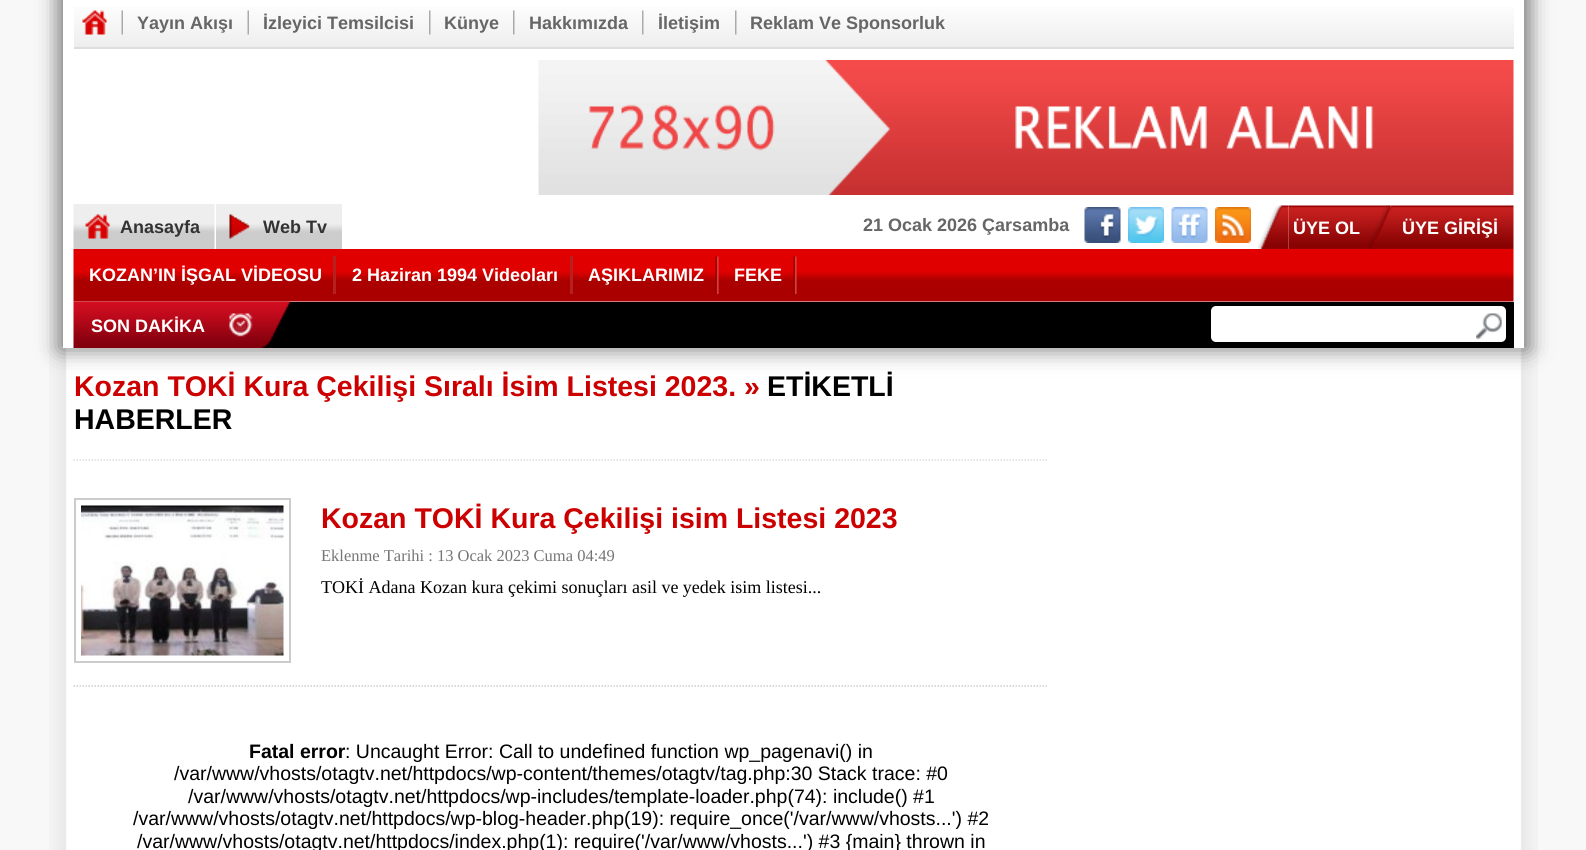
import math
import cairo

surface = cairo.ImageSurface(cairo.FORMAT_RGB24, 1586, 850)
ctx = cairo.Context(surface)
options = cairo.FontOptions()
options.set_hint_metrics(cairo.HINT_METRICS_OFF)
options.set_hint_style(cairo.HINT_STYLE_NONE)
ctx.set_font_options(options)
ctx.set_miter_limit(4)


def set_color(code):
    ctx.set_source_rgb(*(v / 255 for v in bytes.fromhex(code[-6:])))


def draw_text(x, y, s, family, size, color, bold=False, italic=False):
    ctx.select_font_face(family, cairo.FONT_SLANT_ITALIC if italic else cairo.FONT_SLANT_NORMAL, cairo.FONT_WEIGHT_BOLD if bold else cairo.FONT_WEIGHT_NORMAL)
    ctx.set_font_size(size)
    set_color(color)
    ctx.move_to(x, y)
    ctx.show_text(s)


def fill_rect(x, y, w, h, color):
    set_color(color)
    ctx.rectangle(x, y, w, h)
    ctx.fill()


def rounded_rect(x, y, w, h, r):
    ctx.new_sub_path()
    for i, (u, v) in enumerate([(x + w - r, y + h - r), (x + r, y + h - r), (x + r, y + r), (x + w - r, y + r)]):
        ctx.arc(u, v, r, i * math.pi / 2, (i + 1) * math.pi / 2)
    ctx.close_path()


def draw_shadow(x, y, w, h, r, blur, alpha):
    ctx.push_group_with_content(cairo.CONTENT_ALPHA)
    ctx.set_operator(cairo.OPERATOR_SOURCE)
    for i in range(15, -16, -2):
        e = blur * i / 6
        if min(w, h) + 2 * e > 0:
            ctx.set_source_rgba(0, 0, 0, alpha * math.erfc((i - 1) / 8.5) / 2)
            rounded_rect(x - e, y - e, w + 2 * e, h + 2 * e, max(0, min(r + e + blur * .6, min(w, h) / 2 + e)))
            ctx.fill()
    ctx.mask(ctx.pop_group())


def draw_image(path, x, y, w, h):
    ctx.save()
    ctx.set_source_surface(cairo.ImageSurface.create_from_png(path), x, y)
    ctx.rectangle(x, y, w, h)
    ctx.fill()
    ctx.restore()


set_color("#f8f8f8")
ctx.paint()
draw_image("assets/img1.png", 49, 0, 1489, 850)
set_color("#000000")
draw_shadow(59, -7, 1470, 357, 0, 11, 0.5)
fill_rect(63, 0, 1461, 348, "#ffffff")
gradient = cairo.LinearGradient(794, 0, 794, 47)
gradient.add_color_stop_rgba(0, 1, 1, 1, 1)
gradient.add_color_stop_rgba(1, 0.933, 0.933, 0.933, 1)
ctx.set_source(gradient)
ctx.rectangle(74, 7, 1440, 40)
ctx.fill()
fill_rect(74, 47, 1440, 2, "#dddddd")
draw_image("assets/img2.png", 82, 10, 25, 25)
draw_image("assets/img3.png", 121, 10, 2, 25)
draw_text(137, 29, "Yayın Akışı", "Liberation Sans", 18, "#666666", bold=True)
draw_image("assets/img3.png", 247, 10, 2, 25)
draw_text(263, 29, "İzleyici Temsilcisi", "Liberation Sans", 18, "#666666", bold=True)
draw_image("assets/img4.png", 429, 10, 2, 25)
draw_text(444, 29, "Künye", "Liberation Sans", 18, "#666666", bold=True)
draw_image("assets/img4.png", 513, 10, 2, 25)
draw_text(529, 29, "Hakkımızda", "Liberation Sans", 18, "#666666", bold=True)
draw_image("assets/img4.png", 642, 10, 2, 25)
draw_text(658, 29, "İletişim", "Liberation Sans", 18, "#666666", bold=True)
draw_image("assets/img4.png", 735, 10, 2, 25)
draw_text(750, 29, "Reklam Ve Sponsorluk", "Liberation Sans", 18, "#666666", bold=True)
draw_image("assets/img5.png", 538, 60, 976, 135)
draw_image("assets/img6.png", 73, 204, 142, 45)
draw_image("assets/img7.png", 85, 214, 25, 25)
draw_text(120, 233, "Anasayfa", "Liberation Sans", 18, "#333333", bold=True)
draw_image("assets/img8.png", 216, 204, 126, 45)
draw_image("assets/img9.png", 229, 214, 21, 25)
draw_text(263, 233, "Web Tv", "Liberation Sans", 18, "#333333", bold=True)
draw_text(863, 231, "21 Ocak 2026 Çarsamba", "Liberation Sans", 18, "#666666", bold=True)
draw_image("assets/img10.png", 1084, 207, 37, 36)
draw_image("assets/img11.png", 1128, 207, 36, 36)
draw_image("assets/img12.png", 1171, 207, 37, 36)
draw_image("assets/img13.png", 1215, 207, 36, 36)
draw_image("assets/img14.png", 1258, 205, 31, 44)
draw_image("assets/img15.png", 1288, 205, 103, 44)
draw_text(1293, 234, "ÜYE OL", "Liberation Sans", 18, "#ffffff", bold=True)
draw_image("assets/img16.png", 1367, 205, 31, 44)
draw_image("assets/img17.png", 1398, 205, 116, 44)
draw_text(1402, 234, "ÜYE GİRİŞİ", "Liberation Sans", 18, "#ffffff", bold=True)
draw_image("assets/img18.png", 73, 249, 1441, 53)
fill_rect(333, 256, 3, 38, "#b52020")
draw_text(89, 281, "KOZAN’IN İŞGAL VİDEOSU", "Liberation Sans", 18, "#ffffff", bold=True)
fill_rect(570, 256, 3, 38, "#b52020")
draw_text(352, 281, "2 Haziran 1994 Videoları", "Liberation Sans", 18, "#ffffff", bold=True)
draw_image("assets/img19.png", 715, 256, 4, 38)
draw_text(588, 281, "AŞIKLARIMIZ", "Liberation Sans", 18, "#ffffff", bold=True)
draw_image("assets/img19.png", 793, 256, 4, 38)
draw_text(734, 281, "FEKE", "Liberation Sans", 18, "#ffffff", bold=True)
fill_rect(289, 302, 1225, 46, "#000000")
draw_image("assets/img20.png", 73, 301, 217, 47)
draw_text(91, 332, "SON DAKİKA", "Liberation Sans", 18, "#ffffff", bold=True)
rounded_rect(1211, 306, 295, 36, 5)
ctx.fill()
draw_image("assets/img21.png", 1476, 313, 26, 26)
ctx.new_path()
ctx.move_to(73.5, 460)
ctx.line_to(1048.5, 460)
set_color("#dddddd")
ctx.set_line_width(1.5)
ctx.set_dash([1.5, 1.5])
ctx.stroke()
draw_text(74, 396, "Kozan TOKİ Kura Çekilişi Sıralı İsim Listesi 2023. »", "Liberation Sans", 28.5, "#cc0000", bold=True)
draw_text(767, 396, "ETİKETLİ", "Liberation Sans", 28.5, "#000000", bold=True)
draw_text(74, 429, "HABERLER", "Liberation Sans", 28.5, "#000000", bold=True)
ctx.new_path()
ctx.move_to(73.5, 686)
ctx.line_to(1048.5, 686)
set_color("#cccccc")
ctx.stroke()
ctx.rectangle(75, 499, 215, 163)
ctx.set_line_width(2)
ctx.set_dash([])
ctx.stroke()
draw_image("assets/img22.png", 81, 505, 203, 151)
draw_text(321, 528, "Kozan TOKİ Kura Çekilişi isim Listesi 2023", "Liberation Sans", 28.5, "#cc0000", bold=True)
draw_text(321, 561, "Eklenme Tarihi : 13 Ocak 2023 Cuma 04:49", "Liberation Serif", 16.5, "#757575")
draw_text(321, 593, "TOKİ Adana Kozan kura çekimi sonuçları asil ve yedek isim listesi...", "Liberation Serif", 18, "#000000")
draw_text(249, 758, "Fatal error", "Liberation Sans", 19.5, "#000000", bold=True)
draw_text(345, 758, ": Uncaught Error: Call to undefined function wp_pagenavi() in", "Liberation Sans", 19.5, "#000000")
draw_text(174, 780, "/var/www/vhosts/otagtv.net/httpdocs/wp-content/themes/otagtv/tag.php:30 Stack trace: #0", "Liberation Sans", 19.5, "#000000")
draw_text(188, 803, "/var/www/vhosts/otagtv.net/httpdocs/wp-includes/template-loader.php(74): include() #1", "Liberation Sans", 19.5, "#000000")
draw_text(133, 825, "/var/www/vhosts/otagtv.net/httpdocs/wp-blog-header.php(19): require_once('/var/www/vhosts...') #2", "Liberation Sans", 19.5, "#000000")
draw_text(137, 848, "/var/www/vhosts/otagtv.net/httpdocs/index.php(1): require('/var/www/vhosts...') #3 {main} thrown in", "Liberation Sans", 19.5, "#000000")
surface.write_to_png("output.png")
